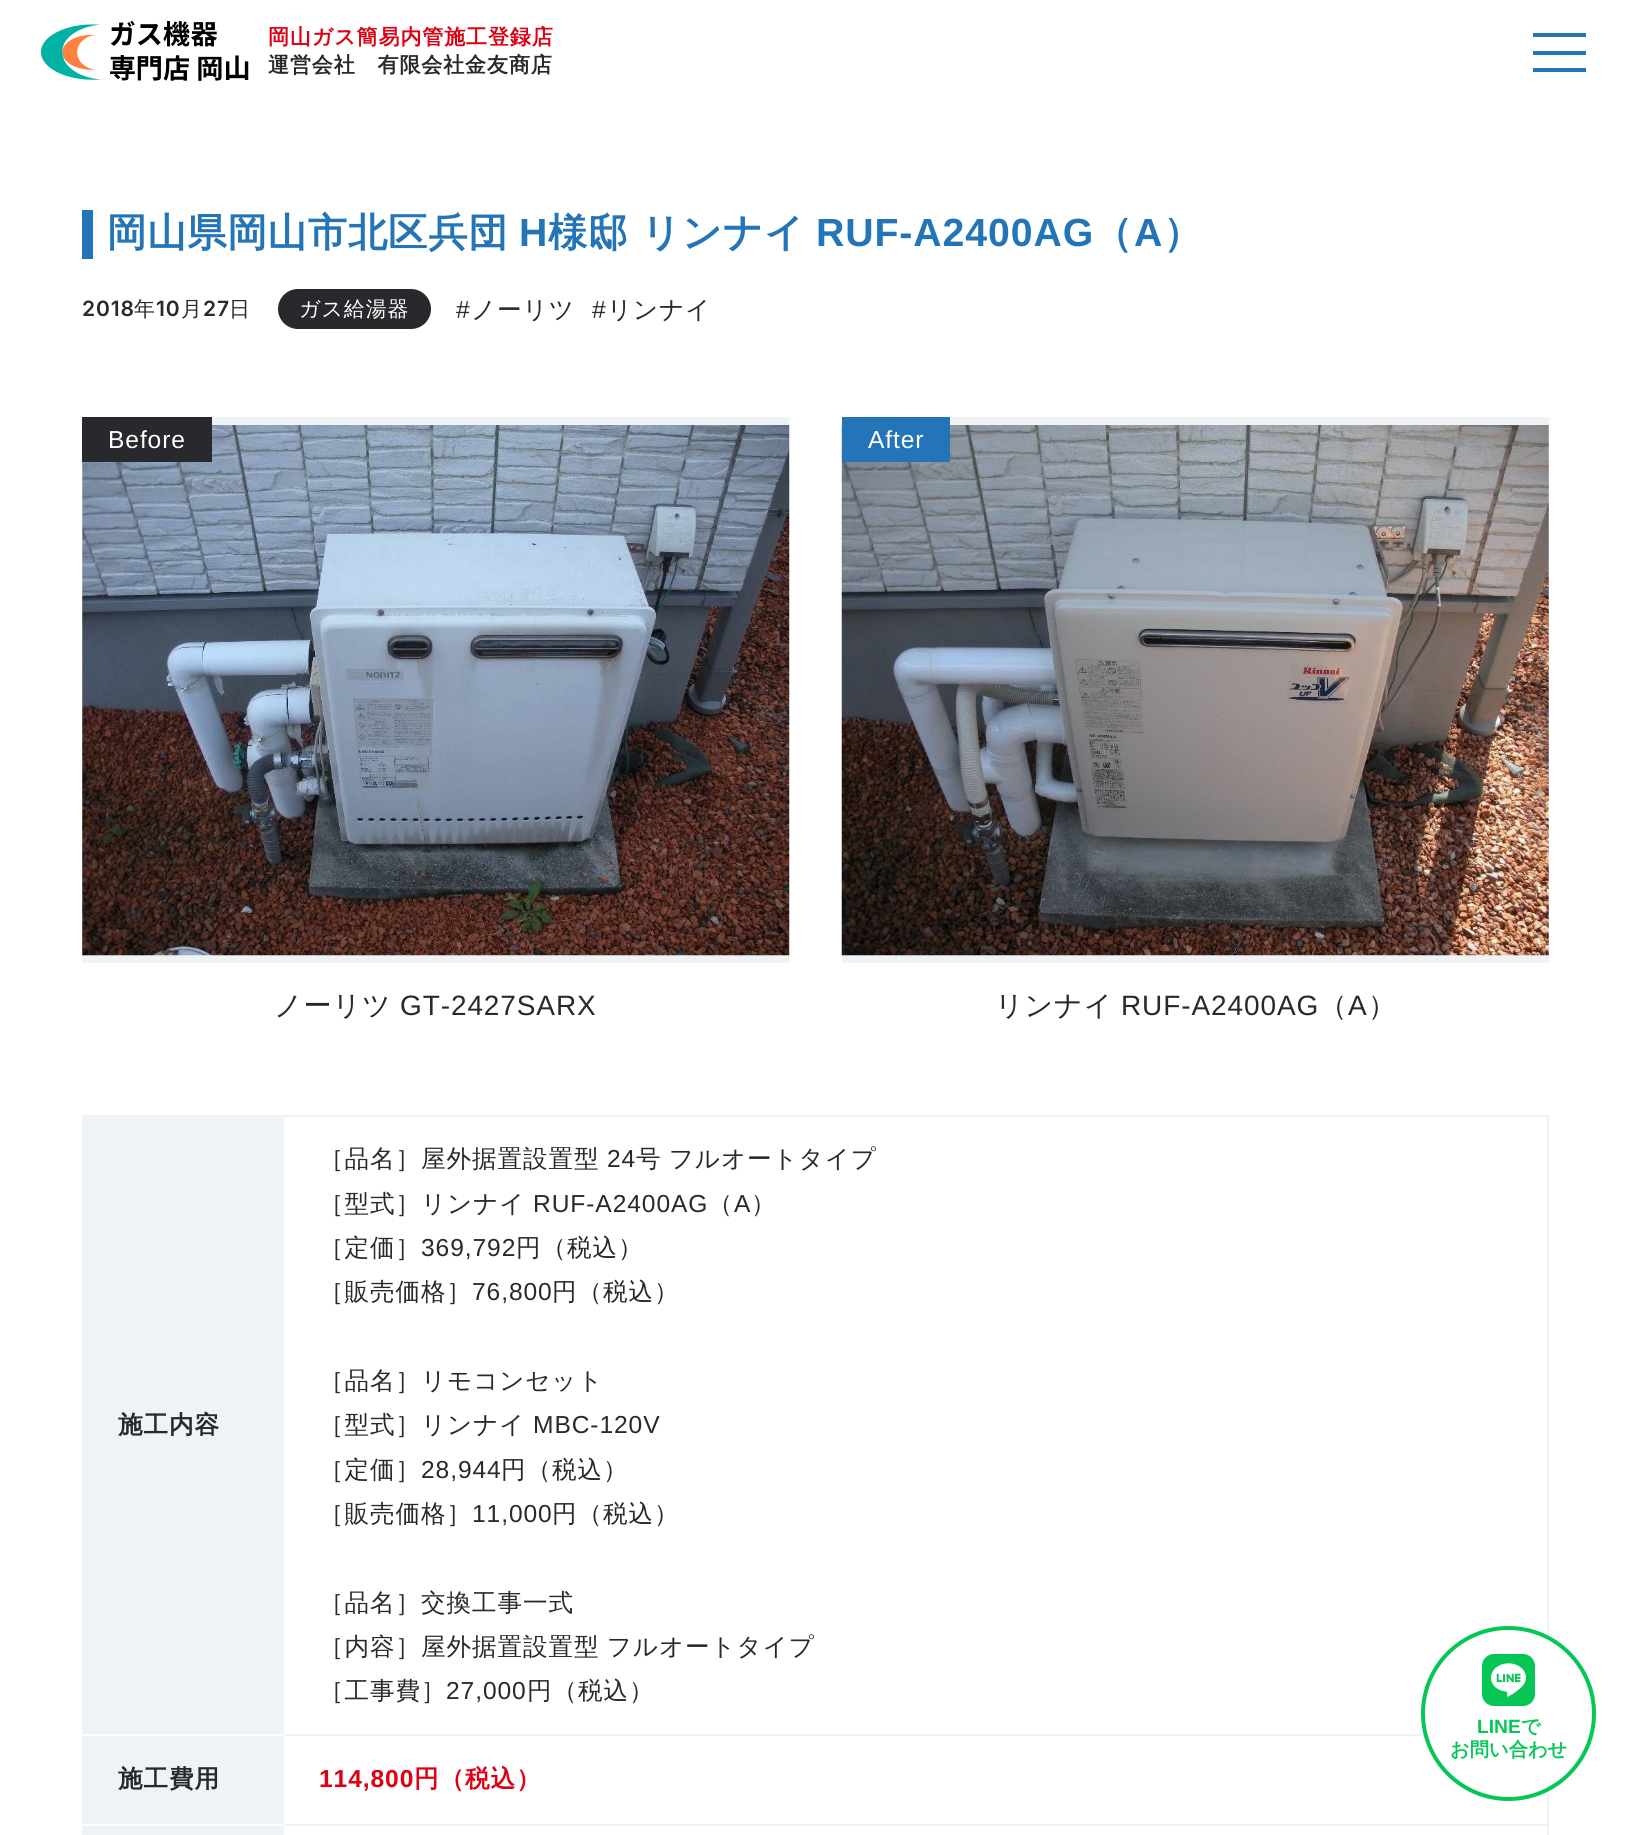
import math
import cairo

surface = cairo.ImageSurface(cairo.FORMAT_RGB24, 1631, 1835)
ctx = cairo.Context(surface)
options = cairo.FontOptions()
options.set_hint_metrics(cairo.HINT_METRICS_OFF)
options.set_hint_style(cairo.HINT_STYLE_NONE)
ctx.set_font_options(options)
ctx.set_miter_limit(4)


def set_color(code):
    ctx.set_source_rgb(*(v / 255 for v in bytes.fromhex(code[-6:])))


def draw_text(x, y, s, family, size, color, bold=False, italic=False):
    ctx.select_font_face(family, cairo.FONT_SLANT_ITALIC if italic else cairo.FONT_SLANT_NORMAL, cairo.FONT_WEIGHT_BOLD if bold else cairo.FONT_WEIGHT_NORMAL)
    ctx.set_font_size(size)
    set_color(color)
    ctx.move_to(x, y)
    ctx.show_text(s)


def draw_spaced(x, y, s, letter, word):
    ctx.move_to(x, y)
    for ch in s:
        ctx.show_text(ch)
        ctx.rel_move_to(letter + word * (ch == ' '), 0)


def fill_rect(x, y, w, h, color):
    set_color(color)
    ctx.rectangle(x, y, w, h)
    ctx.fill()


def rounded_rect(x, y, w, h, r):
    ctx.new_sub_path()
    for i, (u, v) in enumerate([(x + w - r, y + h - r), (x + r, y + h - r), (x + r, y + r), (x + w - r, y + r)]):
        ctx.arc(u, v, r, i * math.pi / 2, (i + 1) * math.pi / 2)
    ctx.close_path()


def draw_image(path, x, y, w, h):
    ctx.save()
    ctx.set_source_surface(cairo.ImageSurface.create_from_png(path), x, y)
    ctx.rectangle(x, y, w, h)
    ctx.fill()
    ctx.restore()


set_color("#ffffff")
ctx.paint()
draw_image("assets/img1.png", 40, 21, 209, 60)
ctx.select_font_face("WenQuanYi Zen Hei", cairo.FONT_SLANT_NORMAL, cairo.FONT_WEIGHT_BOLD)
ctx.set_font_size(21)
set_color("#de0012")
draw_spaced(268, 44, "岡山ガス簡易内管施工登録店", 0.9, 0)
set_color("#28292c")
draw_spaced(268, 72, "運営会社　有限会社金友商店", 0.9, 0)
fill_rect(1533, 33, 53, 4, "#2375b8")
fill_rect(1533, 51, 53, 4, "#2375b8")
fill_rect(1533, 68, 53, 4, "#2375b8")
fill_rect(82, 210, 11, 49, "#2375b8")
ctx.set_font_size(39.25)
draw_spaced(107, 246, "岡山県岡山市北区兵団", 0.9, 0)
ctx.select_font_face("Liberation Sans", cairo.FONT_SLANT_NORMAL, cairo.FONT_WEIGHT_BOLD)
draw_spaced(519, 246, "H", 0.9, 0)
ctx.select_font_face("WenQuanYi Zen Hei", cairo.FONT_SLANT_NORMAL, cairo.FONT_WEIGHT_BOLD)
draw_spaced(548, 246, "様邸 リンナイ", 0.9, 0)
ctx.select_font_face("Liberation Sans", cairo.FONT_SLANT_NORMAL, cairo.FONT_WEIGHT_BOLD)
draw_spaced(816, 246, "RUF-A2400AG", 0.9, 0)
ctx.select_font_face("WenQuanYi Zen Hei", cairo.FONT_SLANT_NORMAL, cairo.FONT_WEIGHT_BOLD)
draw_spaced(1093, 246, "（", 0.9, 0)
ctx.select_font_face("Liberation Sans", cairo.FONT_SLANT_NORMAL, cairo.FONT_WEIGHT_BOLD)
draw_spaced(1134, 246, "A", 0.9, 0)
ctx.select_font_face("WenQuanYi Zen Hei", cairo.FONT_SLANT_NORMAL, cairo.FONT_WEIGHT_BOLD)
draw_spaced(1163, 246, "）", 0.9, 0)
ctx.select_font_face("Inter SemiBold")
ctx.set_font_size(21)
set_color("#28292c")
draw_spaced(82, 316, "2018", 0.9, 0)
ctx.select_font_face("WenQuanYi Zen Hei Medium")
draw_spaced(134, 316, "年", 0.9, 0)
ctx.select_font_face("Inter SemiBold")
draw_spaced(156, 316, "10", 0.9, 0)
ctx.select_font_face("WenQuanYi Zen Hei Medium")
draw_spaced(181, 316, "月", 0.9, 0)
ctx.select_font_face("Inter SemiBold")
draw_spaced(203, 316, "27", 0.9, 0)
ctx.select_font_face("WenQuanYi Zen Hei Medium")
draw_spaced(229, 316, "日", 0.9, 0)
rounded_rect(278, 289, 153, 40, 20)
ctx.fill()
set_color("#ffffff")
draw_spaced(299, 316, "ガス給湯器", 0.9, 0)
ctx.select_font_face("Liberation Sans")
ctx.set_font_size(24.6)
set_color("#28292c")
draw_spaced(456, 318, "#", 0.9, 0)
ctx.select_font_face("WenQuanYi Zen Hei Medium")
draw_spaced(471, 318, "ノーリツ", 0.9, 0)
ctx.select_font_face("Liberation Sans")
draw_spaced(592, 318, "#", 0.9, 0)
ctx.select_font_face("WenQuanYi Zen Hei Medium")
draw_spaced(607, 318, "リンナイ", 0.9, 0)
fill_rect(82, 417, 707, 546, "#f0f3f6")
draw_image("assets/img2.png", 82, 425, 708, 531)
fill_rect(82, 417, 130, 45, "#28292c")
ctx.select_font_face("Liberation Sans")
set_color("#ffffff")
draw_spaced(108, 448, "Before", 0.9, 0)
ctx.select_font_face("WenQuanYi Zen Hei Medium")
ctx.set_font_size(28)
set_color("#28292c")
draw_spaced(274, 1015, "ノーリツ", 0.9, 0)
ctx.select_font_face("Liberation Sans")
draw_spaced(400, 1015, "GT-2427SARX", 0.9, 0)
fill_rect(842, 417, 707, 546, "#f0f3f6")
draw_image("assets/img3.png", 841, 425, 708, 531)
fill_rect(842, 417, 108, 45, "#2375b8")
ctx.set_font_size(24.6)
set_color("#ffffff")
draw_spaced(868, 448, "After", 0.9, 0)
ctx.select_font_face("WenQuanYi Zen Hei Medium")
ctx.set_font_size(28)
set_color("#28292c")
draw_spaced(995, 1015, "リンナイ", 0.9, 0)
ctx.select_font_face("Liberation Sans")
draw_spaced(1121, 1015, "RUF-A2400AG", 0.9, 0)
ctx.select_font_face("WenQuanYi Zen Hei Medium")
draw_spaced(1319, 1015, "（", 0.9, 0)
ctx.select_font_face("Liberation Sans")
draw_spaced(1348, 1015, "A", 0.9, 0)
ctx.select_font_face("WenQuanYi Zen Hei Medium")
draw_spaced(1368, 1015, "）", 0.9, 0)
fill_rect(82, 1115, 1467, 2, "#f0f3f6")
fill_rect(1547, 1115, 2, 720, "#f0f3f6")
fill_rect(82, 1117, 202, 617, "#f0f3f6")
fill_rect(284, 1734, 1140, 2, "#f0f3f6")
fill_rect(284, 1734, 1, 2, "#ffffff")
ctx.select_font_face("WenQuanYi Zen Hei", cairo.FONT_SLANT_NORMAL, cairo.FONT_WEIGHT_BOLD)
ctx.set_font_size(24.6)
set_color("#28292c")
draw_spaced(118, 1433, "施工内容", 0.9, 0)
ctx.select_font_face("WenQuanYi Zen Hei Medium")
draw_spaced(319, 1167, "［品名］屋外据置設置型", 0.9, 0)
ctx.select_font_face("Liberation Sans")
draw_spaced(607, 1167, "24", 0.9, 0)
ctx.select_font_face("WenQuanYi Zen Hei Medium")
draw_spaced(636, 1167, "号 フルオートタイプ", 0.9, -1)
draw_spaced(319, 1212, "［型式］リンナイ", 0.9, 0)
ctx.select_font_face("Liberation Sans")
draw_spaced(533, 1212, "RUF-A2400AG", 0.9, 0)
ctx.select_font_face("WenQuanYi Zen Hei Medium")
draw_spaced(708, 1212, "（", 0.9, 0)
ctx.select_font_face("Liberation Sans")
draw_spaced(734, 1212, "A", 0.9, 0)
ctx.select_font_face("WenQuanYi Zen Hei Medium")
draw_spaced(751, 1212, "）", 0.9, 0)
draw_spaced(319, 1256, "［定価］", 0.9, 0)
ctx.select_font_face("Liberation Sans")
draw_spaced(421, 1256, "369,792", 0.9, 0)
ctx.select_font_face("WenQuanYi Zen Hei Medium")
draw_spaced(516, 1256, "円（税込）", 0.9, 0)
draw_spaced(319, 1300, "［販売価格］", 0.9, 0)
ctx.select_font_face("Liberation Sans")
draw_spaced(472, 1300, "76,800", 0.9, 0)
ctx.select_font_face("WenQuanYi Zen Hei Medium")
draw_spaced(552, 1300, "円（税込）", 0.9, 0)
draw_spaced(319, 1389, "［品名］リモコンセット", 0.9, 0)
draw_spaced(319, 1433, "［型式］リンナイ", 0.9, 0)
ctx.select_font_face("Liberation Sans")
draw_spaced(533, 1433, "MBC-120V", 0.9, 0)
ctx.select_font_face("WenQuanYi Zen Hei Medium")
draw_spaced(319, 1478, "［定価］", 0.9, 0)
ctx.select_font_face("Liberation Sans")
draw_spaced(421, 1478, "28,944", 0.9, 0)
ctx.select_font_face("WenQuanYi Zen Hei Medium")
draw_spaced(501, 1478, "円（税込）", 0.9, 0)
draw_spaced(319, 1522, "［販売価格］", 0.9, 0)
ctx.select_font_face("Liberation Sans")
draw_spaced(472, 1522, "11,000", 0.9, 0)
ctx.select_font_face("WenQuanYi Zen Hei Medium")
draw_spaced(552, 1522, "円（税込）", 0.9, 0)
draw_spaced(319, 1611, "［品名］交換工事一式", 0.9, 0)
draw_spaced(319, 1655, "［内容］屋外据置設置型 フルオートタイプ", 0.9, -1)
draw_spaced(319, 1699, "［工事費］", 0.9, 0)
ctx.select_font_face("Liberation Sans")
draw_spaced(446, 1699, "27,000", 0.9, 0)
ctx.select_font_face("WenQuanYi Zen Hei Medium")
draw_spaced(527, 1699, "円（税込）", 0.9, 0)
fill_rect(82, 1736, 202, 88, "#f0f3f6")
fill_rect(284, 1824, 1265, 2, "#f0f3f6")
fill_rect(284, 1824, 1, 2, "#ffffff")
ctx.select_font_face("WenQuanYi Zen Hei", cairo.FONT_SLANT_NORMAL, cairo.FONT_WEIGHT_BOLD)
set_color("#28292c")
draw_spaced(118, 1787, "施工費用", 0.9, 0)
ctx.select_font_face("Liberation Sans", cairo.FONT_SLANT_NORMAL, cairo.FONT_WEIGHT_BOLD)
set_color("#de0012")
draw_spaced(319, 1787, "114,800", 0.9, 0)
ctx.select_font_face("WenQuanYi Zen Hei", cairo.FONT_SLANT_NORMAL, cairo.FONT_WEIGHT_BOLD)
draw_spaced(414, 1787, "円（税込）", 0.9, 0)
fill_rect(82, 1826, 202, 9, "#f0f3f6")
set_color("#ffffff")
ctx.new_path()
ctx.arc(1508.5, 1713.5, 85.5, 0, 2 * math.pi)
ctx.fill_preserve()
set_color("#06c755")
ctx.set_line_width(4)
ctx.stroke()
draw_image("assets/img4.png", 1482, 1654, 53, 52)
draw_text(1477, 1733, "LINE", "Liberation Sans", 19.25, "#06c755", bold=True)
draw_text(1521, 1733, "で", "WenQuanYi Zen Hei", 19.25, "#06c755", bold=True)
draw_text(1450, 1756, "お問い合わせ", "WenQuanYi Zen Hei", 19.25, "#06c755", bold=True)
surface.write_to_png("output.png")
